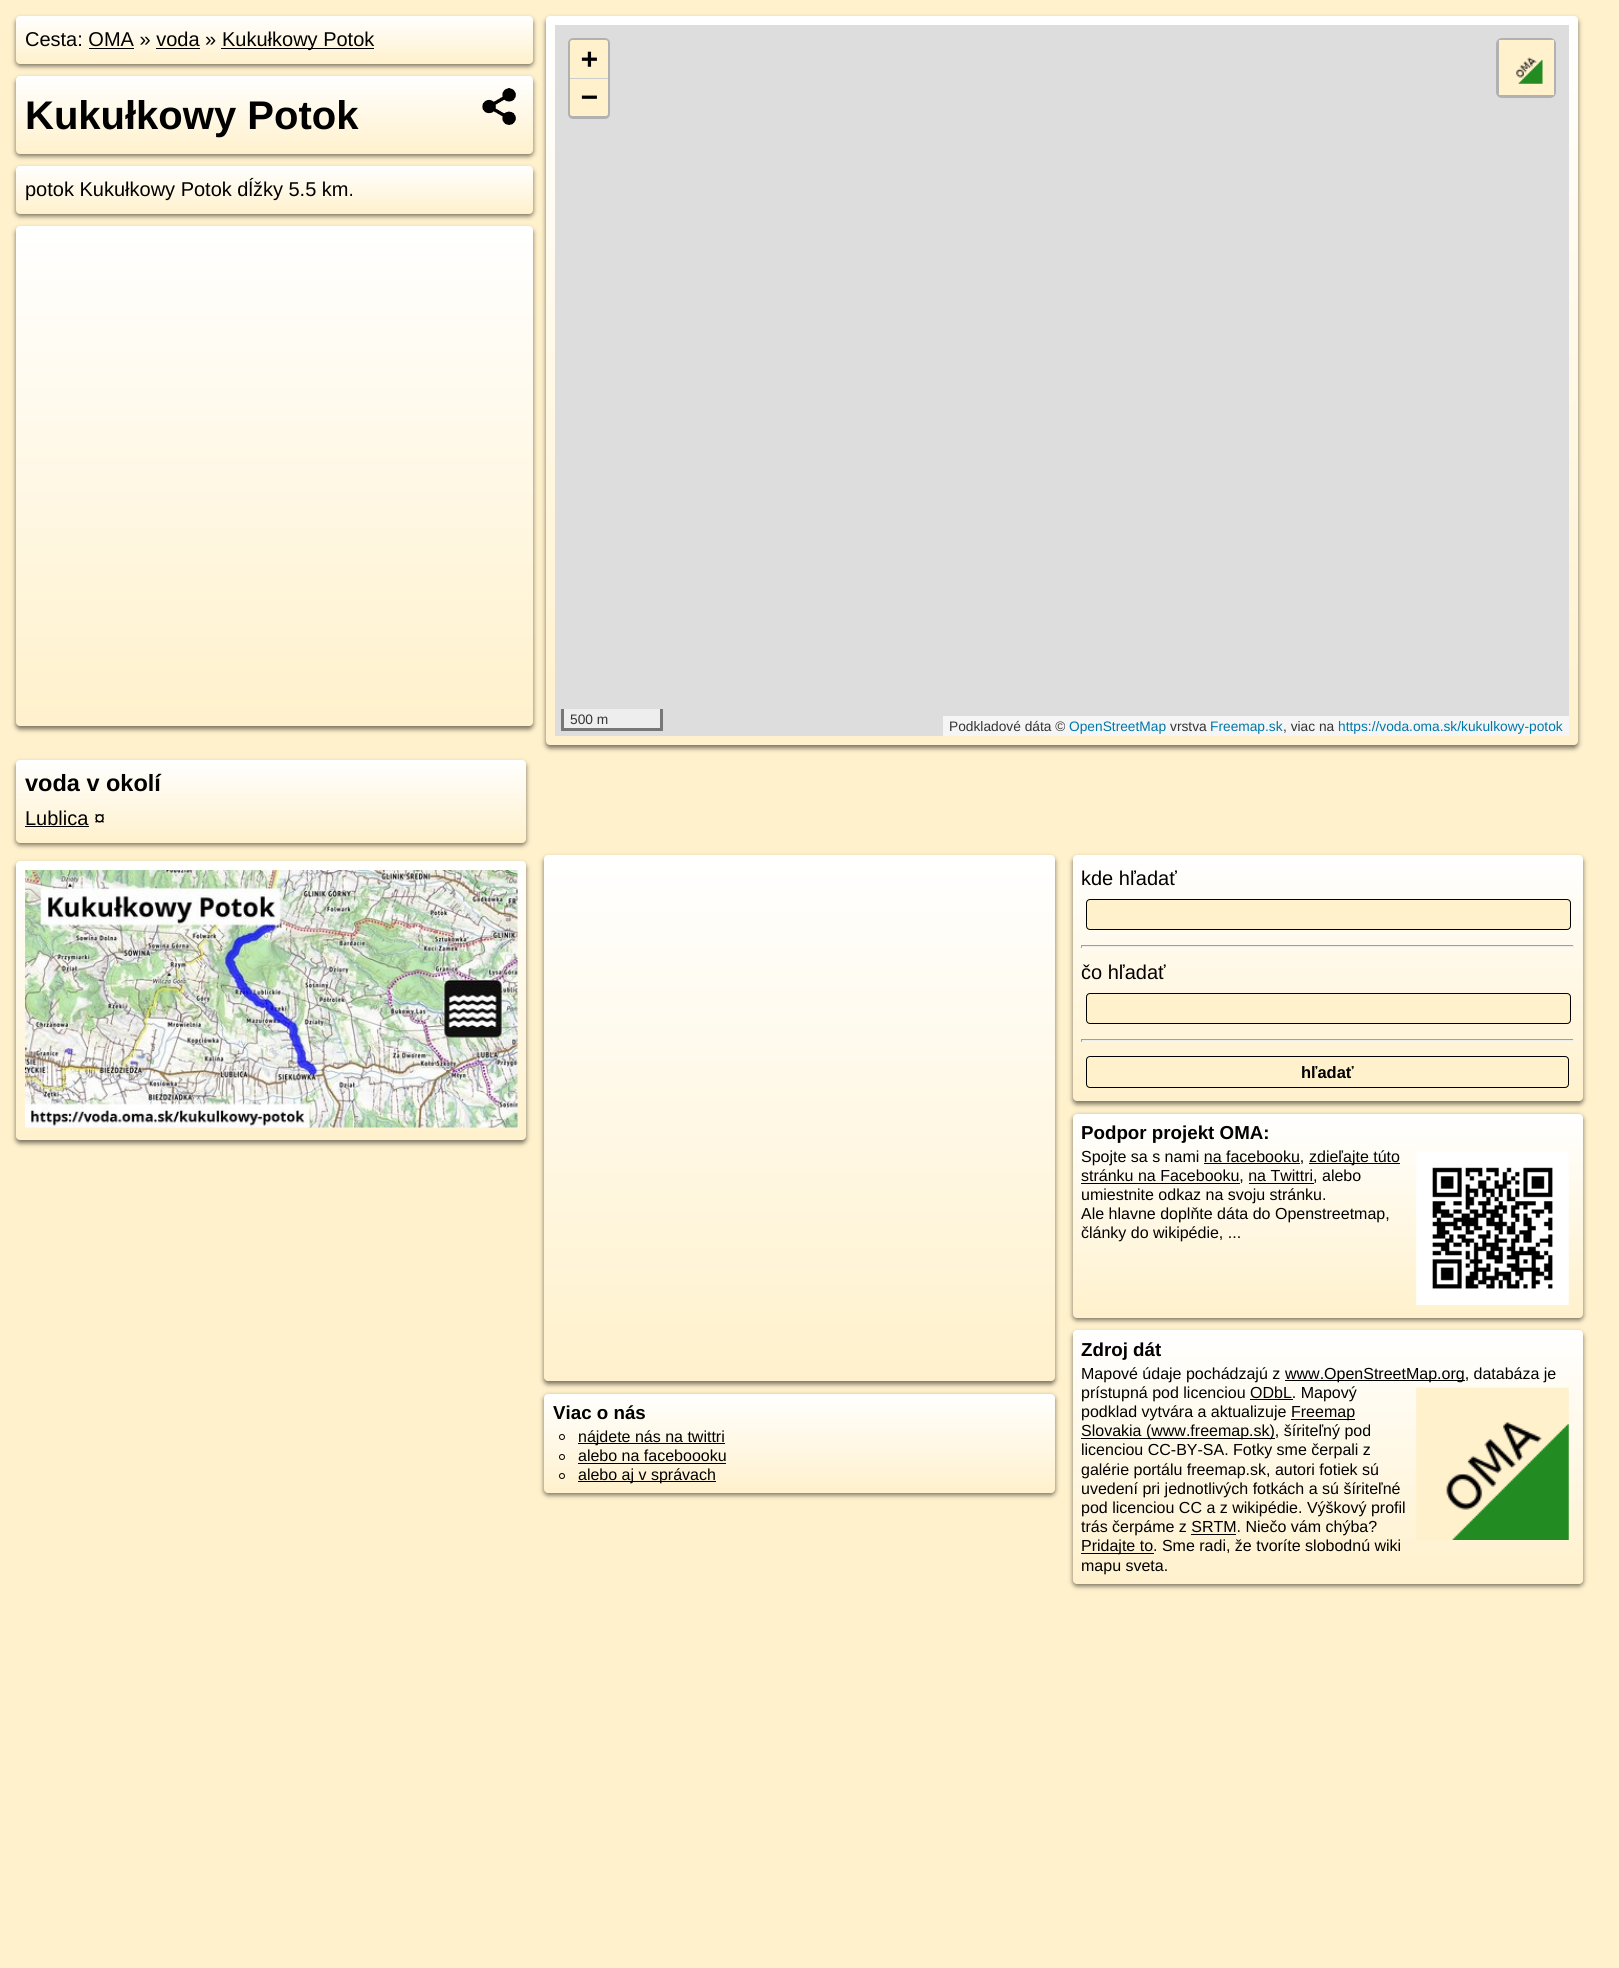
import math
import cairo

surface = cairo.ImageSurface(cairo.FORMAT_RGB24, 1619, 1968)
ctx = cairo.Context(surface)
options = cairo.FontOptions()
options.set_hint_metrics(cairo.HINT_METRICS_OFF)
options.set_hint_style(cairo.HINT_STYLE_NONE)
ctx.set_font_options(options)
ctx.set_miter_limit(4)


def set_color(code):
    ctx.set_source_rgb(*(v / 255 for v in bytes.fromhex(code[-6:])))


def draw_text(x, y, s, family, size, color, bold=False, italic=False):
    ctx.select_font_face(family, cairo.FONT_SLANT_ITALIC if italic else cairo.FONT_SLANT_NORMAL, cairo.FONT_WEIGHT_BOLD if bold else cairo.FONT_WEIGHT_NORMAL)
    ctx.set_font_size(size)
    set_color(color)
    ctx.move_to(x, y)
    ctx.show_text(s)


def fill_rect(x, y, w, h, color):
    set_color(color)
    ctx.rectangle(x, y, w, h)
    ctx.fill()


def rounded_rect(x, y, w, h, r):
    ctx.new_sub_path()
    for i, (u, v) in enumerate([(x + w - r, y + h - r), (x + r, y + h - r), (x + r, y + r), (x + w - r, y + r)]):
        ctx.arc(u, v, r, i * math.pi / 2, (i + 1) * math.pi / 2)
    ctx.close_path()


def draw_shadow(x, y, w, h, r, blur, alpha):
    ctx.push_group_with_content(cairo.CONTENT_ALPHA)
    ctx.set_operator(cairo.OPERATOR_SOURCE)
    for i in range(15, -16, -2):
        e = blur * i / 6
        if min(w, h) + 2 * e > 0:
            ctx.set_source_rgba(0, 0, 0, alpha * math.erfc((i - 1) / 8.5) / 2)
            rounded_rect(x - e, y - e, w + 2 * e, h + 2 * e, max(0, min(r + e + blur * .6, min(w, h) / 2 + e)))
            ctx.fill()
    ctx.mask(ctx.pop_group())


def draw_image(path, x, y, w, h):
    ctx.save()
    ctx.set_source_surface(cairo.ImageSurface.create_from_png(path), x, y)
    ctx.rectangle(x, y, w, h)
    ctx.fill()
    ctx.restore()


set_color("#fff1cc")
ctx.paint()
set_color("#000000")
draw_shadow(16, 19, 517, 47, 4, 2.5, 0.55)
gradient = cairo.LinearGradient(274, 16, 274, 64)
gradient.add_color_stop_rgba(0, 1, 1, 1, 1)
gradient.add_color_stop_rgba(1, 1, 0.945, 0.8, 1)
ctx.set_source(gradient)
rounded_rect(16, 16, 517, 48, 4)
ctx.fill()
draw_text(25, 46, "Cesta: OMA » voda »", "Liberation Sans", 20, "#000000")
fill_rect(221, 48, 153, 1, "#000000")
draw_text(222, 46, "Kukułkowy Potok", "Liberation Sans", 20, "#000000")
fill_rect(89, 48, 45, 1, "#000000")
fill_rect(156, 48, 44, 1, "#000000")
set_color("#000000")
draw_shadow(16, 79, 517, 77, 4, 2.5, 0.55)
gradient = cairo.LinearGradient(274, 76, 274, 154)
gradient.add_color_stop_rgba(0, 1, 1, 1, 1)
gradient.add_color_stop_rgba(1, 1, 0.945, 0.8, 1)
ctx.set_source(gradient)
rounded_rect(16, 76, 517, 78, 4)
ctx.fill()
draw_text(25, 129, "Kukułkowy Potok", "Liberation Sans", 40, "#000000", bold=True)
draw_image("assets/img1.png", 482, 88, 34, 37)
set_color("#000000")
draw_shadow(16, 169, 517, 47, 4, 2.5, 0.55)
gradient = cairo.LinearGradient(274, 166, 274, 214)
gradient.add_color_stop_rgba(0, 1, 1, 1, 1)
gradient.add_color_stop_rgba(1, 1, 0.945, 0.8, 1)
ctx.set_source(gradient)
rounded_rect(16, 166, 517, 48, 4)
ctx.fill()
draw_text(25, 196, "potok Kukułkowy Potok dĺžky 5.5 km.", "Liberation Sans", 20, "#000000")
set_color("#000000")
draw_shadow(16, 229, 517, 500, 4, 2.5, 0.55)
gradient = cairo.LinearGradient(274, 226, 274, 726)
gradient.add_color_stop_rgba(0, 1, 1, 1, 1)
gradient.add_color_stop_rgba(1, 1, 0.945, 0.8, 1)
ctx.set_source(gradient)
rounded_rect(16, 226, 517, 500, 4)
ctx.fill()
set_color("#000000")
draw_shadow(546, 19, 1032, 729, 4, 2.5, 0.55)
gradient = cairo.LinearGradient(1062, 16, 1062, 745)
gradient.add_color_stop_rgba(0, 1, 1, 1, 1)
gradient.add_color_stop_rgba(1, 1, 0.945, 0.8, 1)
ctx.set_source(gradient)
rounded_rect(546, 16, 1032, 729, 4)
ctx.fill()
fill_rect(555, 25, 1014, 711, "#dddddd")
rounded_rect(569.5, 39.5, 39, 78, 3.5)
set_color("#b1b1b1")
ctx.set_line_width(3)
ctx.stroke()
set_color("#fff1cc")
ctx.new_path()
ctx.move_to(572.5, 40)
ctx.line_to(605.5, 40)
ctx.curve_to(607, 40, 608, 41, 608, 42.5)
ctx.line_to(608, 79)
ctx.line_to(570, 79)
ctx.line_to(570, 42.5)
ctx.curve_to(570, 41, 571, 40, 572.5, 40)
ctx.close_path()
ctx.fill()
fill_rect(570, 78, 38, 1, "#cccccc")
draw_text(581, 68, "+", "DejaVu Sans Mono", 28, "#000000", bold=True)
set_color("#fff1cc")
ctx.new_path()
ctx.move_to(570, 79)
ctx.line_to(608, 79)
ctx.line_to(608, 113.5)
ctx.curve_to(608, 115, 607, 116, 605.5, 116)
ctx.line_to(572.5, 116)
ctx.curve_to(571, 116, 570, 115, 570, 113.5)
ctx.close_path()
ctx.fill()
draw_text(581, 106, "−", "DejaVu Sans Mono", 28, "#000000", bold=True)
rounded_rect(1497.5, 39.5, 57, 57, 4.5)
ctx.set_source_rgba(0, 0, 0, 0.2)
ctx.stroke()
fill_rect(1499, 40, 55, 55, "#fff1cc")
draw_image("assets/img2.png", 1516, 57, 27, 27)
fill_rect(564, 709, 96, 19, "#eeeeee")
fill_rect(660, 709, 3, 21, "#777777")
fill_rect(561, 728, 102, 3, "#777777")
fill_rect(561, 709, 3, 21, "#777777")
draw_text(570, 724, "500 m", "Liberation Sans", 13.75, "#333333")
fill_rect(943, 716, 626, 20, "#f5f5f5")
draw_text(949, 731, "Podkladové dáta ©", "Liberation Sans", 13.75, "#333333")
draw_text(1069, 731, "OpenStreetMap", "Liberation Sans", 13.75, "#0078a8")
draw_text(1170, 731, "vrstva", "Liberation Sans", 13.75, "#333333")
draw_text(1210, 731, "Freemap.sk", "Liberation Sans", 13.75, "#0078a8")
draw_text(1283, 731, ", viac na", "Liberation Sans", 13.75, "#333333")
draw_text(1338, 731, "https://voda.oma.sk/kukulkowy-potok", "Liberation Sans", 13.75, "#0078a8")
set_color("#000000")
draw_shadow(16, 763, 510, 82, 4, 2.5, 0.55)
gradient = cairo.LinearGradient(271, 760, 271, 843)
gradient.add_color_stop_rgba(0, 1, 1, 1, 1)
gradient.add_color_stop_rgba(1, 1, 0.945, 0.8, 1)
ctx.set_source(gradient)
rounded_rect(16, 760, 510, 83, 4)
ctx.fill()
draw_text(25, 791, "voda v okolí", "Liberation Sans", 23.5, "#000000", bold=True)
draw_text(25, 825, "Lublica ¤", "Liberation Sans", 20, "#000000")
fill_rect(25, 826, 64, 1, "#000000")
set_color("#000000")
draw_shadow(16, 864, 510, 279, 4, 2.5, 0.55)
gradient = cairo.LinearGradient(271, 861, 271, 1140)
gradient.add_color_stop_rgba(0, 1, 1, 1, 1)
gradient.add_color_stop_rgba(1, 1, 0.945, 0.8, 1)
ctx.set_source(gradient)
rounded_rect(16, 861, 510, 279, 4)
ctx.fill()
draw_image("assets/img3.png", 25, 870, 493, 258)
set_color("#000000")
draw_shadow(544, 858, 511, 526, 4, 2.5, 0.55)
gradient = cairo.LinearGradient(799, 855, 799, 1381)
gradient.add_color_stop_rgba(0, 1, 1, 1, 1)
gradient.add_color_stop_rgba(1, 1, 0.945, 0.8, 1)
ctx.set_source(gradient)
rounded_rect(544, 855, 511, 526, 4)
ctx.fill()
set_color("#000000")
draw_shadow(1073, 858, 510, 246, 4, 2.5, 0.55)
gradient = cairo.LinearGradient(1328, 855, 1328, 1101)
gradient.add_color_stop_rgba(0, 1, 1, 1, 1)
gradient.add_color_stop_rgba(1, 1, 0.945, 0.8, 1)
ctx.set_source(gradient)
rounded_rect(1073, 855, 510, 246, 4)
ctx.fill()
draw_text(1081, 885, "kde hľadať", "Liberation Sans", 20, "#000000")
set_color("#fff1cc")
rounded_rect(1086.5, 899.5, 484, 30, 3.5)
ctx.fill_preserve()
set_color("#000000")
ctx.set_line_width(1)
ctx.stroke()
fill_rect(1081, 945, 493, 1, "#9f9f9f")
fill_rect(1573, 945, 1, 3, "#eeeeee")
fill_rect(1081, 946, 493, 1, "#eeeeee")
fill_rect(1081, 945, 1, 3, "#9f9f9f")
draw_text(1081, 979, "čo hľadať", "Liberation Sans", 20, "#000000")
set_color("#fff1cc")
rounded_rect(1086.5, 993.5, 484, 30, 3.5)
ctx.fill_preserve()
set_color("#000000")
ctx.stroke()
fill_rect(1081, 1039, 493, 1, "#9f9f9f")
fill_rect(1573, 1039, 1, 3, "#eeeeee")
fill_rect(1081, 1040, 493, 1, "#eeeeee")
fill_rect(1081, 1039, 1, 3, "#9f9f9f")
set_color("#fff1cc")
rounded_rect(1086.5, 1056.5, 482, 31, 3.5)
ctx.fill_preserve()
set_color("#000000")
ctx.stroke()
draw_text(1301, 1078, "hľadať", "Liberation Sans", 16.5, "#000000", bold=True)
set_color("#000000")
draw_shadow(1073, 1116, 510, 204, 4, 2.5, 0.55)
gradient = cairo.LinearGradient(1328, 1114, 1328, 1318)
gradient.add_color_stop_rgba(0, 1, 1, 1, 1)
gradient.add_color_stop_rgba(1, 1, 0.945, 0.8, 1)
ctx.set_source(gradient)
rounded_rect(1073, 1114, 510, 204, 4)
ctx.fill()
draw_text(1081, 1139, "Podpor projekt OMA:", "Liberation Sans", 18.75, "#000000", bold=True)
draw_text(1081, 1162, "Spojte sa s nami na facebooku,", "Liberation Sans", 16, "#000000")
fill_rect(1309, 1163, 91, 1, "#000000")
draw_text(1309, 1162, "zdieľajte túto", "Liberation Sans", 16, "#000000")
fill_rect(1204, 1163, 96, 1, "#000000")
fill_rect(1081, 1183, 159, 1, "#000000")
draw_text(1081, 1181, "stránku na Facebooku, na Twittri, alebo", "Liberation Sans", 16, "#000000")
fill_rect(1249, 1183, 65, 1, "#000000")
draw_text(1081, 1200, "umiestnite odkaz na svoju stránku.", "Liberation Sans", 16, "#000000")
draw_image("assets/img4.png", 1416, 1151, 153, 154)
draw_text(1081, 1219, "Ale hlavne doplňte dáta do Openstreetmap,", "Liberation Sans", 16, "#000000")
draw_text(1081, 1238, "články do wikipédie, ...", "Liberation Sans", 16, "#000000")
set_color("#000000")
draw_shadow(544, 1396, 511, 99, 4, 2.5, 0.55)
gradient = cairo.LinearGradient(799, 1394, 799, 1493)
gradient.add_color_stop_rgba(0, 1, 1, 1, 1)
gradient.add_color_stop_rgba(1, 1, 0.945, 0.8, 1)
ctx.set_source(gradient)
rounded_rect(544, 1394, 511, 99, 4)
ctx.fill()
draw_text(553, 1419, "Viac o nás", "Liberation Sans", 18.75, "#000000", bold=True)
ctx.new_path()
ctx.arc(562, 1437, 2.5, 0, 2 * math.pi)
ctx.stroke()
fill_rect(578, 1443, 147, 1, "#000000")
draw_text(578, 1442, "nájdete nás na twittri", "Liberation Sans", 16, "#000000")
ctx.new_path()
ctx.arc(562, 1457, 2.5, 0, 2 * math.pi)
ctx.stroke()
draw_text(578, 1461, "alebo na faceboooku", "Liberation Sans", 16, "#000000")
fill_rect(578, 1463, 148, 1, "#000000")
ctx.new_path()
ctx.arc(562, 1476, 2.5, 0, 2 * math.pi)
ctx.stroke()
fill_rect(578, 1481, 138, 1, "#000000")
draw_text(578, 1480, "alebo aj v správach", "Liberation Sans", 16, "#000000")
set_color("#000000")
draw_shadow(1073, 1333, 510, 253, 4, 2.5, 0.55)
gradient = cairo.LinearGradient(1328, 1330, 1328, 1584)
gradient.add_color_stop_rgba(0, 1, 1, 1, 1)
gradient.add_color_stop_rgba(1, 1, 0.945, 0.8, 1)
ctx.set_source(gradient)
rounded_rect(1073, 1330, 510, 254, 4)
ctx.fill()
draw_text(1081, 1356, "Zdroj dát", "Liberation Sans", 18.75, "#000000", bold=True)
draw_text(1081, 1379, "Mapové údaje pochádzajú z", "Liberation Sans", 16, "#000000")
fill_rect(1285, 1380, 180, 1, "#000000")
draw_text(1285, 1379, "www.OpenStreetMap.org, databáza je", "Liberation Sans", 16, "#000000")
draw_text(1081, 1398, "prístupná pod licenciou ODbL. Mapový", "Liberation Sans", 16, "#000000")
draw_image("assets/img5.png", 1416, 1387, 153, 153)
fill_rect(1250, 1399, 43, 1, "#000000")
draw_text(1081, 1417, "podklad vytvára a aktualizuje", "Liberation Sans", 16, "#000000")
fill_rect(1291, 1419, 64, 1, "#000000")
draw_text(1291, 1417, "Freemap", "Liberation Sans", 16, "#000000")
fill_rect(1081, 1438, 194, 1, "#000000")
draw_text(1081, 1436, "Slovakia (www.freemap.sk), šíriteľný pod", "Liberation Sans", 16, "#000000")
draw_text(1081, 1455, "licenciou CC-BY-SA. Fotky sme čerpali z", "Liberation Sans", 16, "#000000")
draw_text(1081, 1475, "galérie portálu freemap.sk, autori fotiek sú", "Liberation Sans", 16, "#000000")
draw_text(1081, 1494, "uvedení pri jednotlivých fotkách a sú šíriteľné", "Liberation Sans", 16, "#000000")
draw_text(1081, 1513, "pod licenciou CC a z wikipédie. Výškový profil", "Liberation Sans", 16, "#000000")
draw_text(1081, 1532, "trás čerpáme z SRTM. Niečo vám chýba?", "Liberation Sans", 16, "#000000")
fill_rect(1191, 1534, 45, 1, "#000000")
fill_rect(1081, 1553, 73, 1, "#000000")
draw_text(1081, 1551, "Pridajte to. Sme radi, že tvoríte slobodnú wiki", "Liberation Sans", 16, "#000000")
draw_text(1081, 1571, "mapu sveta.", "Liberation Sans", 16, "#000000")
surface.write_to_png("output.png")
